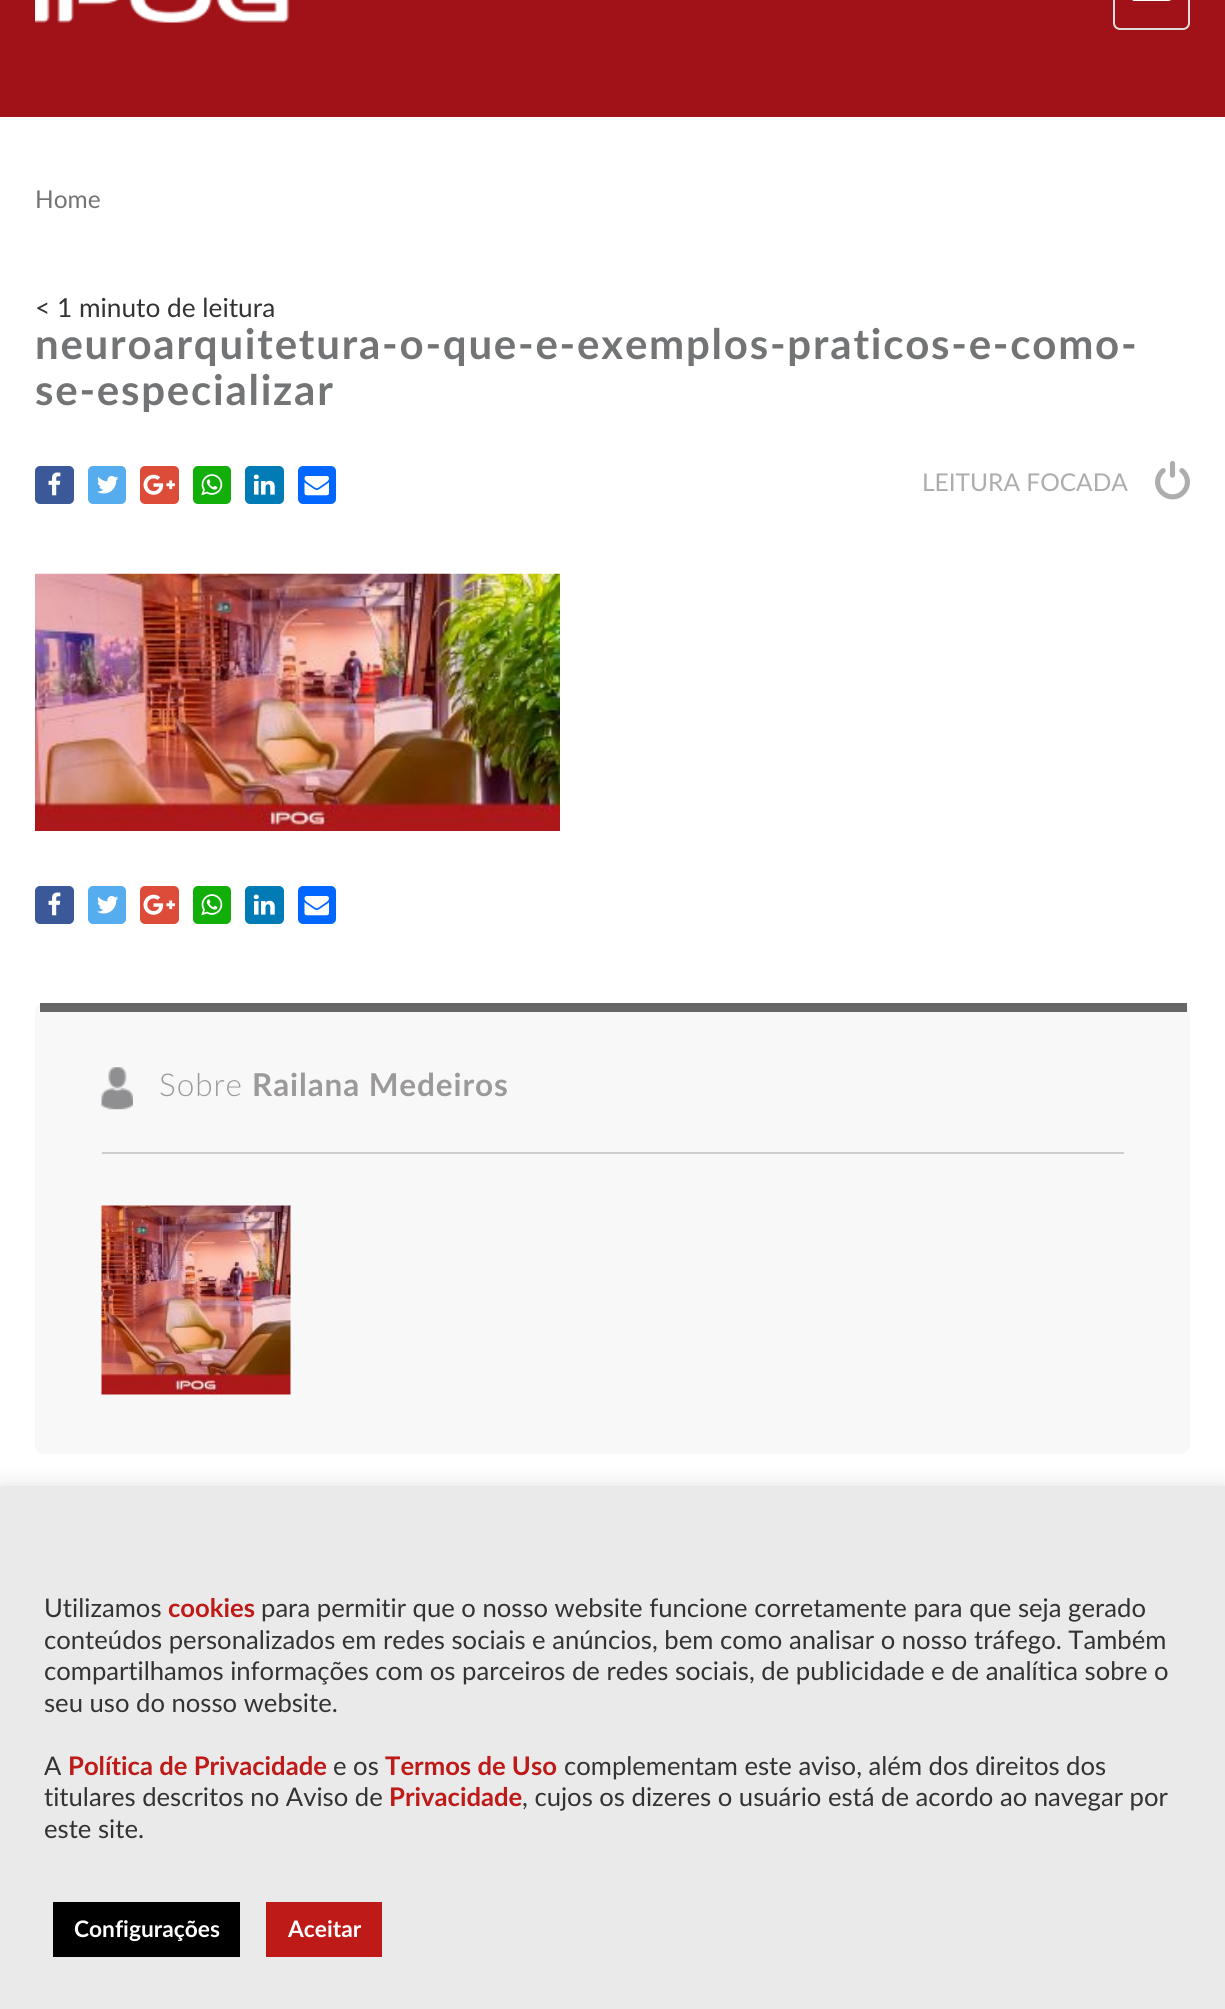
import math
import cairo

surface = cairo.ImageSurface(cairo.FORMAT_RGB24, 1225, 2009)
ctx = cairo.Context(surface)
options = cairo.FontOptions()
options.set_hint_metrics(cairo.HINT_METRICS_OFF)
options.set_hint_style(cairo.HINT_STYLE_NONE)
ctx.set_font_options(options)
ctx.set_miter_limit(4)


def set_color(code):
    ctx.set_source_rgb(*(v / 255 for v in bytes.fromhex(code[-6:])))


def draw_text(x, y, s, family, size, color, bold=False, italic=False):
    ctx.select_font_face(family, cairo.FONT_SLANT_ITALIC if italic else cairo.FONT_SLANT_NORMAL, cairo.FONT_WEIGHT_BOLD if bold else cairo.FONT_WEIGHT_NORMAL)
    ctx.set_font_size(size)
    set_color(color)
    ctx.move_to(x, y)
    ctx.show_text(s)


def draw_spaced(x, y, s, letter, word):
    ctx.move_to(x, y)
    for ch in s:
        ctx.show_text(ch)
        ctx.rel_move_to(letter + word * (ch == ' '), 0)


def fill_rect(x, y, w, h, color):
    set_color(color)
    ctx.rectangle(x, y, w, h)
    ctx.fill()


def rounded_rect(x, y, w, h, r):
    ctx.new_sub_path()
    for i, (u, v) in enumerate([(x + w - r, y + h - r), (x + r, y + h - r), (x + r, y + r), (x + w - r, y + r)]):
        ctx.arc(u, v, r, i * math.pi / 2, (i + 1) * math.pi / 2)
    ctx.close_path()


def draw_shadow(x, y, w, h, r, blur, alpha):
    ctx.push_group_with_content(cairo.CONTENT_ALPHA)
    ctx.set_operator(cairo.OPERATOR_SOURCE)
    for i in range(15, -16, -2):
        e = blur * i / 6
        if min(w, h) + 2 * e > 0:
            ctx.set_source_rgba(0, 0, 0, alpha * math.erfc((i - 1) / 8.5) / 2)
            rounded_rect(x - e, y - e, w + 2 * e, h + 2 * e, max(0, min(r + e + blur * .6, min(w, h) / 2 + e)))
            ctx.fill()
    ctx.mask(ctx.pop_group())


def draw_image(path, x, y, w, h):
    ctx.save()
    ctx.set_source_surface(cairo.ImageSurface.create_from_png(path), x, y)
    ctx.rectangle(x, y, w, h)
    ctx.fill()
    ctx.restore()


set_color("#ffffff")
ctx.paint()
fill_rect(0, 0, 1225, 117, "#a11218")
draw_image("assets/img1.png", 35, 0, 255, 23)
rounded_rect(1114, -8, 75, 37, 6)
set_color("#dddddd")
ctx.stroke()
set_color("#ffffff")
rounded_rect(1132, -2, 39, 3, 2)
ctx.fill()
draw_text(35, 208, "Home", "Lato", 24.5, "#727476")
draw_text(35, 317, "< 1 minuto de leitura", "Lato", 26.25, "#333333")
ctx.select_font_face("Lato", cairo.FONT_SLANT_NORMAL, cairo.FONT_WEIGHT_BOLD)
ctx.set_font_size(42)
set_color("#727476")
draw_spaced(35, 359, "neuroarquitetura-o-que-e-exemplos-praticos-e-como-", 1.75, 0)
draw_spaced(35, 405, "se-especializar", 1.75, 0)
set_color("#3b5998")
rounded_rect(35, 466, 39, 38, 5)
ctx.fill()
draw_image("assets/img2.png", 48, 472, 13, 24)
set_color("#55acee")
rounded_rect(88, 466, 38, 38, 5)
ctx.fill()
draw_image("assets/img3.png", 97, 476, 22, 18)
set_color("#dd4b39")
rounded_rect(140, 466, 39, 38, 5)
ctx.fill()
draw_image("assets/img4.png", 143, 474, 32, 21)
set_color("#12af0a")
rounded_rect(193, 466, 38, 38, 5)
ctx.fill()
draw_image("assets/img5.png", 201, 474, 22, 22)
set_color("#007bb5")
rounded_rect(245, 466, 39, 38, 5)
ctx.fill()
draw_image("assets/img6.png", 253, 474, 22, 21)
set_color("#0166ff")
rounded_rect(298, 466, 38, 38, 5)
ctx.fill()
draw_image("assets/img7.png", 304, 476, 25, 20)
draw_text(922, 491, "LEITURA FOCADA", "Lato", 24.5, "#aeadac")
draw_image("assets/img8.png", 1155, 461, 35, 39)
draw_image("assets/img9.png", 35, 573, 525, 258)
set_color("#3b5998")
rounded_rect(35, 886, 39, 38, 5)
ctx.fill()
draw_image("assets/img2.png", 48, 892, 13, 24)
set_color("#55acee")
rounded_rect(88, 886, 38, 38, 5)
ctx.fill()
draw_image("assets/img3.png", 97, 896, 22, 18)
set_color("#dd4b39")
rounded_rect(140, 886, 39, 38, 5)
ctx.fill()
draw_image("assets/img4.png", 143, 894, 32, 21)
set_color("#12af0a")
rounded_rect(193, 886, 38, 38, 5)
ctx.fill()
draw_image("assets/img5.png", 201, 894, 22, 22)
set_color("#007bb5")
rounded_rect(245, 886, 39, 38, 5)
ctx.fill()
draw_image("assets/img6.png", 253, 894, 22, 21)
set_color("#0166ff")
rounded_rect(298, 886, 38, 38, 5)
ctx.fill()
draw_image("assets/img7.png", 304, 896, 25, 20)
set_color("#f8f8f8")
rounded_rect(35, 1003, 1155, 451, 9)
ctx.fill()
fill_rect(40, 1003, 1147, 9, "#666666")
fill_rect(102, 1152, 1022, 2, "#cdcdcd")
draw_image("assets/img10.png", 101, 1067, 32, 43)
ctx.select_font_face("Lato Light")
ctx.set_font_size(31.5)
set_color("#9b9999")
draw_spaced(159, 1096, "Sobre", 0.9, 0)
ctx.select_font_face("Lato", cairo.FONT_SLANT_NORMAL, cairo.FONT_WEIGHT_BOLD)
draw_spaced(252, 1096, "Railana Medeiros", 0.9, 0)
draw_image("assets/img11.png", 101, 1205, 190, 190)
set_color("#acabab")
draw_shadow(0, 1484, 1225, 523, 0, 9, 0.3)
fill_rect(0, 1486, 1225, 523, "#eaeaea")
draw_text(44, 1617, "Utilizamos", "Lato", 25.65, "#333333")
draw_text(168, 1617, "cookies", "Lato", 25.65, "#be1a18", bold=True)
draw_text(261, 1617, "para permitir que o nosso website funcione corretamente para que seja gerado", "Lato", 25.65, "#333333")
draw_text(44, 1649, "conteúdos personalizados em redes sociais e anúncios, bem como analisar o nosso tráfego. Também", "Lato", 25.65, "#333333")
draw_text(44, 1680, "compartilhamos informações com os parceiros de redes sociais, de publicidade e de analítica sobre o", "Lato", 25.65, "#333333")
draw_text(44, 1712, "seu uso do nosso website.", "Lato", 25.65, "#333333")
draw_text(44, 1775, "A", "Lato", 25.65, "#333333")
draw_text(68, 1775, "Política de Privacidade", "Lato", 25.65, "#be1a18", bold=True)
draw_text(333, 1775, "e os", "Lato", 25.65, "#333333")
draw_text(385, 1775, "Termos de Uso", "Lato", 25.65, "#be1a18", bold=True)
draw_text(564, 1775, "complementam este aviso, além dos direitos dos", "Lato", 25.65, "#333333")
draw_text(44, 1806, "titulares descritos no Aviso de", "Lato", 25.65, "#333333")
draw_text(389, 1806, "Privacidade", "Lato", 25.65, "#be1a18", bold=True)
draw_text(522, 1806, ", cujos os dizeres o usuário está de acordo ao navegar por", "Lato", 25.65, "#333333")
draw_text(44, 1838, "este site.", "Lato", 25.65, "#333333")
fill_rect(53, 1902, 187, 55, "#000000")
draw_text(74, 1937, "Configurações", "Lato", 22.75, "#ffffff", bold=True)
fill_rect(266, 1902, 116, 55, "#be1a18")
draw_text(288, 1937, "Aceitar", "Lato", 22.75, "#ffffff", bold=True)
surface.write_to_png("output.png")
